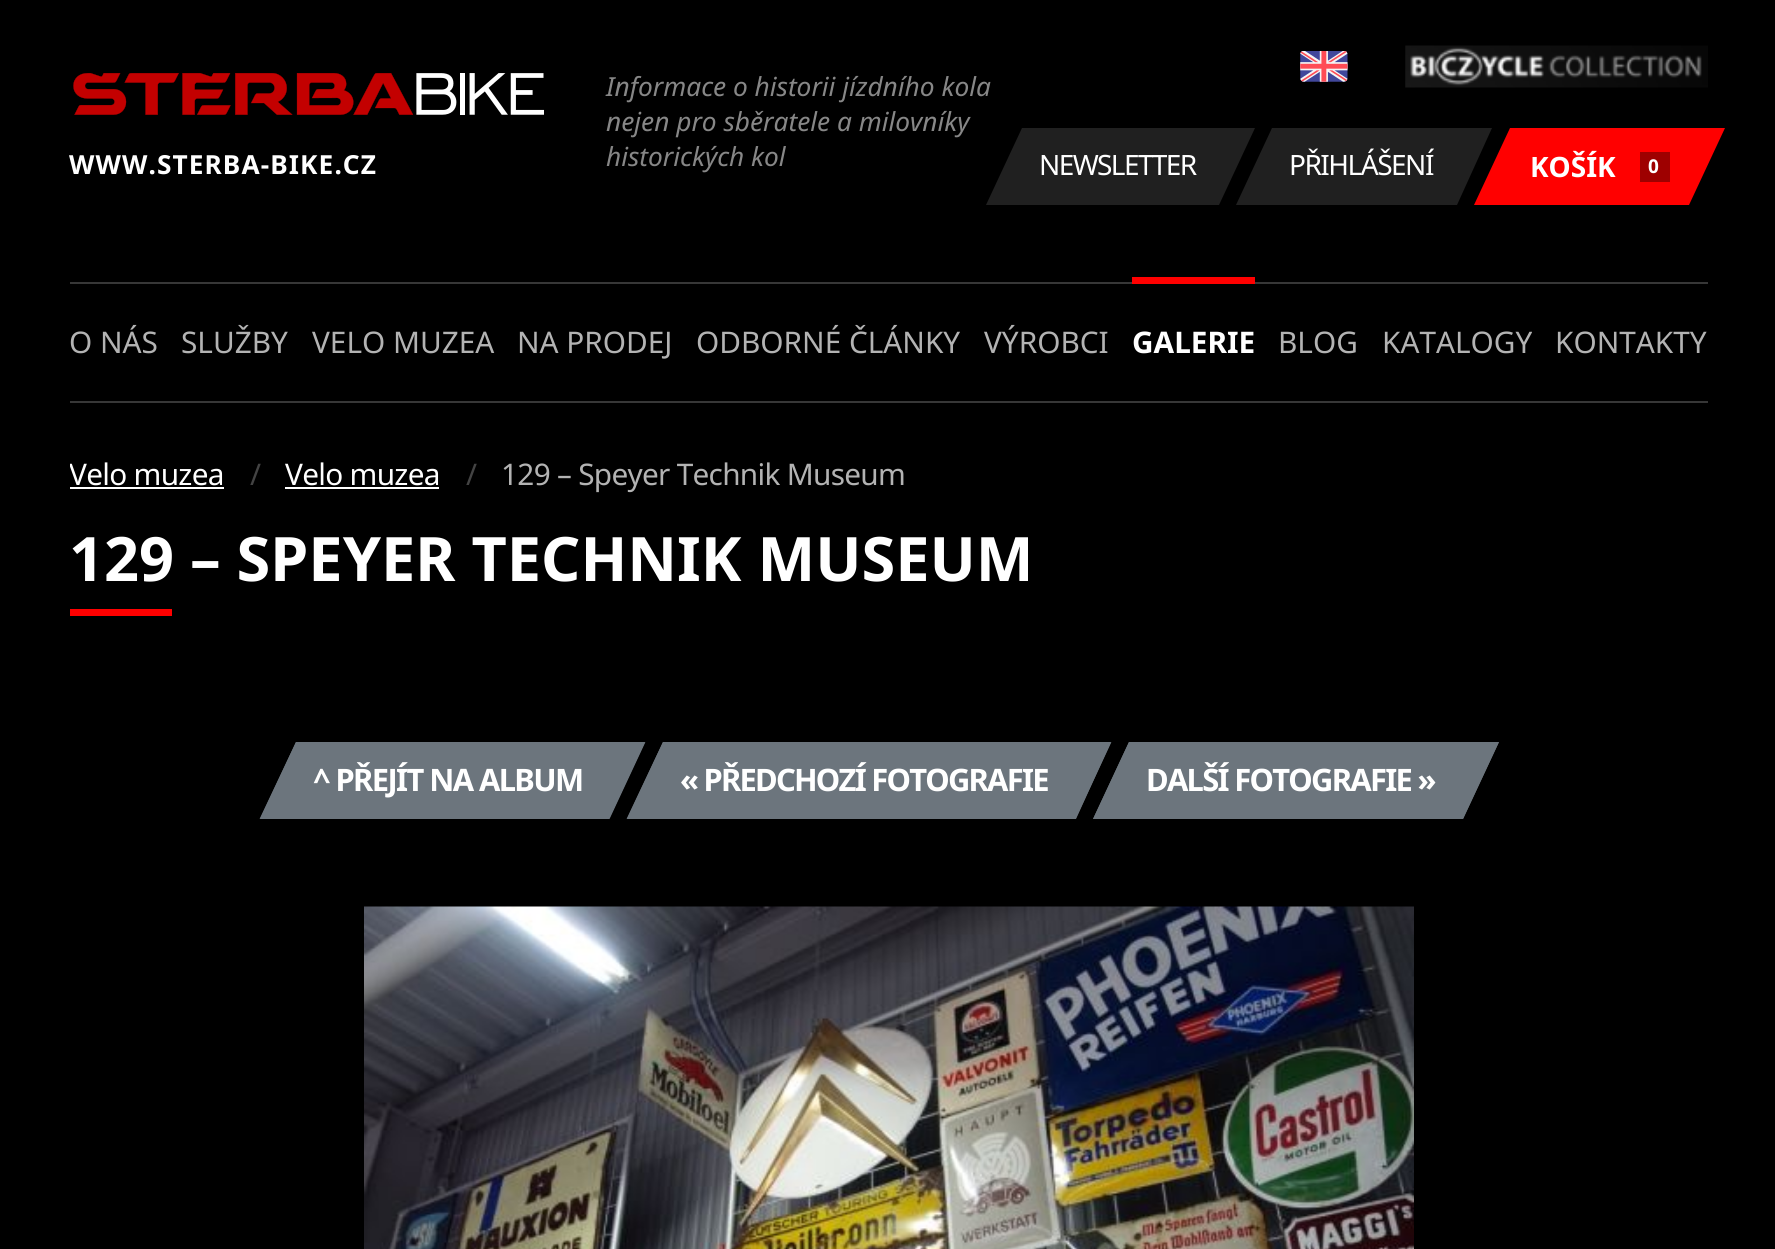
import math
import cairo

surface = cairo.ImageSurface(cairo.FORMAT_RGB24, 1775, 1249)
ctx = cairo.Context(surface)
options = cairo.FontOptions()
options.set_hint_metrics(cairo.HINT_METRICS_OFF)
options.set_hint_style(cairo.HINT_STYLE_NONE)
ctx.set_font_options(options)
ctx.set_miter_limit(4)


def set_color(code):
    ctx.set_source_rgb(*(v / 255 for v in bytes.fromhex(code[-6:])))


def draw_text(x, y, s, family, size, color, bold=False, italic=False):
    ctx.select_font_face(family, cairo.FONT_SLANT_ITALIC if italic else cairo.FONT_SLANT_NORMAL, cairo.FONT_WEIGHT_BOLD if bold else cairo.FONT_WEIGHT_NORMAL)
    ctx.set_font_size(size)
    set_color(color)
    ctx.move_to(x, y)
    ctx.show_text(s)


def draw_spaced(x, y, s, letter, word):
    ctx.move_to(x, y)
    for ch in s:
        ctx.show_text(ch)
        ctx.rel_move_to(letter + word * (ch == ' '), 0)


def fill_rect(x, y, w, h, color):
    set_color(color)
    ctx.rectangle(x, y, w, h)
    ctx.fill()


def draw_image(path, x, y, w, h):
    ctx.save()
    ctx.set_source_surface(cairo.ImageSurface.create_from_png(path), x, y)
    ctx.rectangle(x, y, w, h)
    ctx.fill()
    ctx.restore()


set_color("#000000")
ctx.paint()
draw_image("assets/img1.png", 73, 73, 471, 42)
ctx.select_font_face("Noto Sans", cairo.FONT_SLANT_NORMAL, cairo.FONT_WEIGHT_BOLD)
ctx.set_font_size(26.25)
set_color("#ffffff")
draw_spaced(69, 174, "WWW.STERBA-BIKE.CZ", 1.1, 0)
draw_text(606, 96, "Informace o historii jízdního kola", "Noto Sans", 26.25, "#878787", italic=True)
draw_text(606, 131, "nejen pro sběratele a milovníky", "Noto Sans", 26.25, "#878787", italic=True)
draw_text(606, 166, "historických kol", "Noto Sans", 26.25, "#878787", italic=True)
draw_image("assets/img2.png", 1300, 51, 48, 31)
draw_image("assets/img3.png", 1405, 45, 303, 43)
set_color("#202020")
ctx.new_path()
ctx.move_to(1022, 128)
ctx.line_to(1255, 128)
ctx.line_to(1219, 205)
ctx.line_to(986, 205)
ctx.close_path()
ctx.fill()
ctx.select_font_face("Noto Sans")
ctx.set_font_size(28)
set_color("#ffffff")
draw_spaced(1039, 175, "NEWSLETTER", -1.6, 0)
set_color("#202020")
ctx.new_path()
ctx.move_to(1272, 128)
ctx.line_to(1492, 128)
ctx.line_to(1457, 205)
ctx.line_to(1236, 205)
ctx.close_path()
ctx.fill()
set_color("#ffffff")
draw_spaced(1289, 175, "PŘIHLÁŠENÍ", -1.5, 0)
set_color("#ff0000")
ctx.new_path()
ctx.move_to(1510, 128)
ctx.line_to(1725, 128)
ctx.line_to(1689, 205)
ctx.line_to(1474, 205)
ctx.close_path()
ctx.fill()
draw_text(1530, 177, "KOŠÍK", "Noto Sans", 28, "#ffffff", bold=True)
fill_rect(1640, 152, 30, 30, "#9e0000")
draw_text(1648, 173, "0", "Noto Sans", 19, "#ffffff", bold=True)
fill_rect(70, 282, 1638, 2, "#373737")
fill_rect(70, 401, 1638, 2, "#373737")
draw_text(69, 353, "O NÁS", "Noto Sans", 29.75, "#b3b3b3")
draw_text(181, 353, "SLUŽBY", "Noto Sans", 29.75, "#b3b3b3")
draw_text(312, 353, "VELO MUZEA", "Noto Sans", 29.75, "#b3b3b3")
draw_text(517, 353, "NA PRODEJ", "Noto Sans", 29.75, "#b3b3b3")
draw_text(696, 353, "ODBORNÉ ČLÁNKY", "Noto Sans", 29.75, "#b3b3b3")
draw_text(984, 353, "VÝROBCI", "Noto Sans", 29.75, "#b3b3b3")
fill_rect(1132, 277, 123, 7, "#ff0000")
draw_text(1132, 353, "GALERIE", "Noto Sans", 29.75, "#ffffff", bold=True)
draw_text(1278, 353, "BLOG", "Noto Sans", 29.75, "#b3b3b3")
draw_text(1382, 353, "KATALOGY", "Noto Sans", 29.75, "#b3b3b3")
draw_text(1555, 353, "KONTAKTY", "Noto Sans", 29.75, "#b3b3b3")
ctx.save()
ctx.rectangle(70, 455, 1638, 39)
ctx.clip()
set_color("#ffffff")
draw_spaced(69, 485, "Velo muzea", -0.7, 0)
ctx.restore()
fill_rect(70, 487, 154, 2, "#ffffff")
set_color("#434343")
draw_spaced(250, 485, "/", -0.7, 0)
set_color("#ffffff")
draw_spaced(285, 485, "Velo muzea", -0.7, 0)
fill_rect(285, 487, 154, 2, "#ffffff")
set_color("#434343")
draw_spaced(466, 485, "/", -0.7, 0)
set_color("#b3b3b3")
draw_spaced(501, 485, "129 – Speyer Technik Museum", -0.7, 0)
draw_text(69, 581, "129 – SPEYER TECHNIK MUSEUM", "Noto Sans", 61.25, "#ffffff", bold=True)
fill_rect(70, 609, 102, 7, "#ff0000")
set_color("#6c757d")
ctx.new_path()
ctx.move_to(296, 742)
ctx.line_to(645, 742)
ctx.line_to(609, 819)
ctx.line_to(260, 819)
ctx.close_path()
ctx.fill()
ctx.new_path()
ctx.move_to(296.5, 743)
ctx.line_to(644, 743)
ctx.line_to(609, 818)
ctx.line_to(261, 818)
ctx.close_path()
ctx.set_line_width(1.8)
ctx.stroke()
ctx.set_font_size(30.9)
set_color("#ffffff")
draw_spaced(313, 791, "^ PŘEJÍT NA ALBUM", -1.6, 0)
set_color("#6c757d")
ctx.new_path()
ctx.move_to(663, 742)
ctx.line_to(1111, 742)
ctx.line_to(1076, 819)
ctx.line_to(627, 819)
ctx.close_path()
ctx.fill()
ctx.new_path()
ctx.move_to(663.5, 743)
ctx.line_to(1110, 743)
ctx.line_to(1075, 818)
ctx.line_to(628, 818)
ctx.close_path()
ctx.stroke()
set_color("#ffffff")
draw_spaced(680, 791, "« PŘEDCHOZÍ FOTOGRAFIE", -1.75, 0)
set_color("#6c757d")
ctx.new_path()
ctx.move_to(1129, 742)
ctx.line_to(1499, 742)
ctx.line_to(1463, 819)
ctx.line_to(1093, 819)
ctx.close_path()
ctx.fill()
ctx.new_path()
ctx.move_to(1129.5, 743)
ctx.line_to(1497.5, 743)
ctx.line_to(1462.5, 818)
ctx.line_to(1094.5, 818)
ctx.close_path()
ctx.stroke()
set_color("#ffffff")
draw_spaced(1146, 791, "DALŠÍ FOTOGRAFIE »", -1.7, 0)
draw_image("assets/img4.png", 364, 906, 1050, 343)
surface.write_to_png("output.png")
